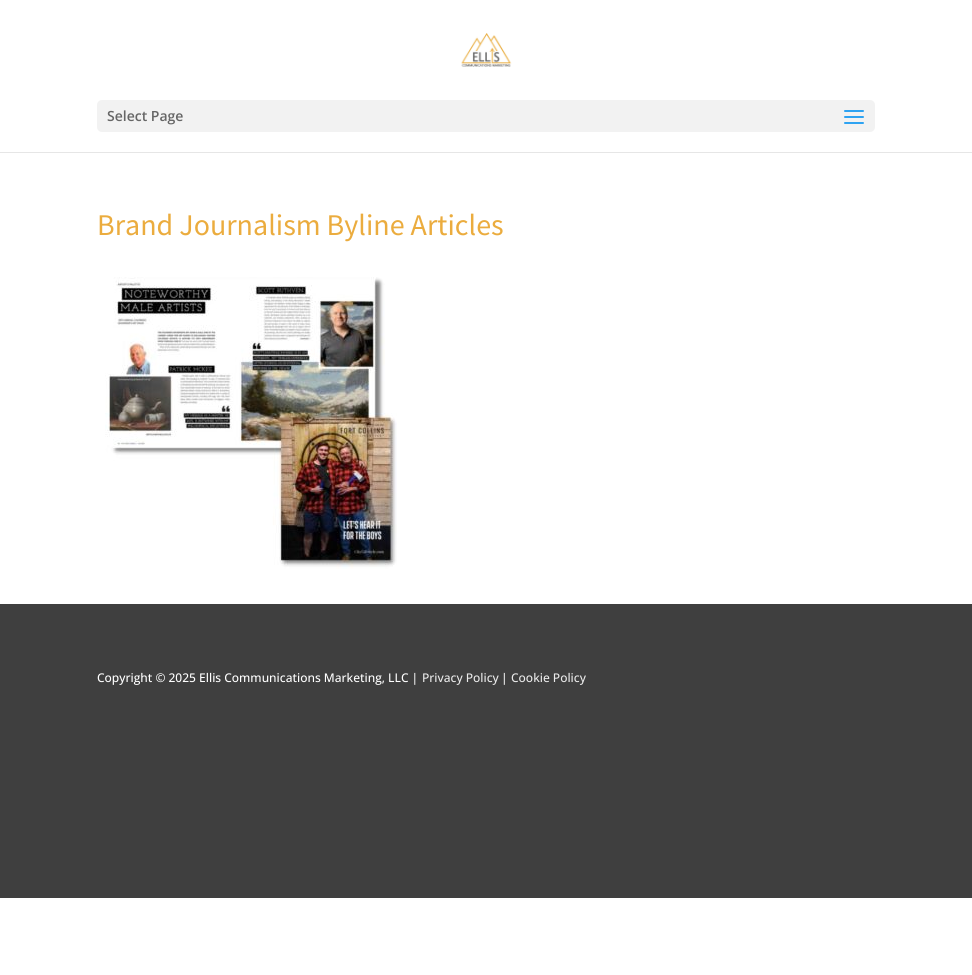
import math
import cairo

surface = cairo.ImageSurface(cairo.FORMAT_RGB24, 972, 975)
ctx = cairo.Context(surface)
options = cairo.FontOptions()
options.set_hint_metrics(cairo.HINT_METRICS_OFF)
options.set_hint_style(cairo.HINT_STYLE_NONE)
ctx.set_font_options(options)
ctx.set_miter_limit(4)


def set_color(code):
    ctx.set_source_rgb(*(v / 255 for v in bytes.fromhex(code[-6:])))


def draw_text(x, y, s, family, size, color, bold=False, italic=False):
    ctx.select_font_face(family, cairo.FONT_SLANT_ITALIC if italic else cairo.FONT_SLANT_NORMAL, cairo.FONT_WEIGHT_BOLD if bold else cairo.FONT_WEIGHT_NORMAL)
    ctx.set_font_size(size)
    set_color(color)
    ctx.move_to(x, y)
    ctx.show_text(s)


def fill_rect(x, y, w, h, color):
    set_color(color)
    ctx.rectangle(x, y, w, h)
    ctx.fill()


def rounded_rect(x, y, w, h, r):
    ctx.new_sub_path()
    for i, (u, v) in enumerate([(x + w - r, y + h - r), (x + r, y + h - r), (x + r, y + r), (x + w - r, y + r)]):
        ctx.arc(u, v, r, i * math.pi / 2, (i + 1) * math.pi / 2)
    ctx.close_path()


def draw_image(path, x, y, w, h):
    ctx.save()
    ctx.set_source_surface(cairo.ImageSurface.create_from_png(path), x, y)
    ctx.rectangle(x, y, w, h)
    ctx.fill()
    ctx.restore()


set_color("#ffffff")
ctx.paint()
fill_rect(0, 152, 972, 1, "#e6e6e6")
draw_image("assets/img1.png", 461, 33, 51, 34)
set_color("#f2f2f2")
rounded_rect(97, 100, 778, 32, 5)
ctx.fill()
draw_text(107, 121, "Select Page", "Open Sans SemiBold", 14, "#666666")
draw_image("assets/img2.png", 844, 110, 20, 14)
draw_text(97, 235, "Brand Journalism Byline Articles", "Source Sans Pro", 30, "#ebac3e")
draw_image("assets/img3.png", 105, 277, 292, 292)
fill_rect(0, 604, 972, 294, "#3f3f3f")
draw_text(97, 682, "Copyright © 2025 Ellis Communications Marketing, LLC |", "Open Sans Medium", 12, "#ffffff")
draw_text(422, 682, "Privacy Policy", "Open Sans Medium", 12, "#eaeaea")
draw_text(501, 682, "|", "Open Sans Medium", 12, "#ffffff")
draw_text(511, 682, "Cookie Policy", "Open Sans Medium", 12, "#eaeaea")
surface.write_to_png("output.png")
